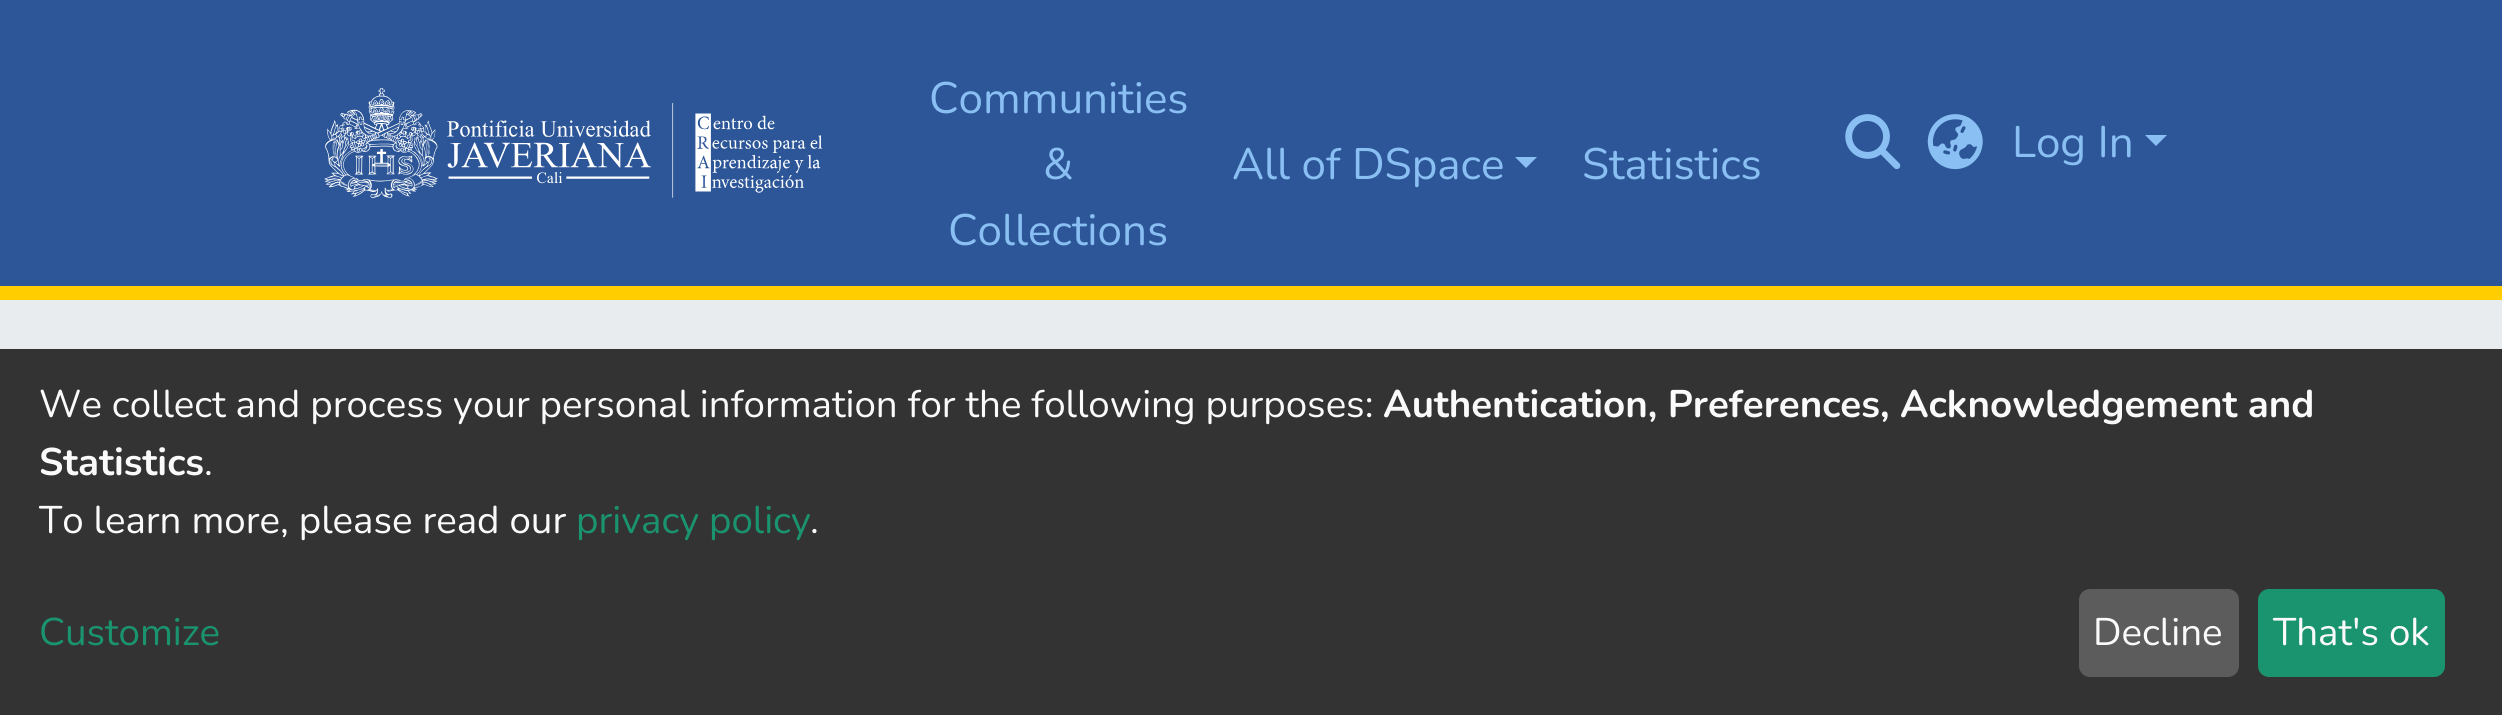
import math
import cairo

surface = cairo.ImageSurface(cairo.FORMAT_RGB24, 2502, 715)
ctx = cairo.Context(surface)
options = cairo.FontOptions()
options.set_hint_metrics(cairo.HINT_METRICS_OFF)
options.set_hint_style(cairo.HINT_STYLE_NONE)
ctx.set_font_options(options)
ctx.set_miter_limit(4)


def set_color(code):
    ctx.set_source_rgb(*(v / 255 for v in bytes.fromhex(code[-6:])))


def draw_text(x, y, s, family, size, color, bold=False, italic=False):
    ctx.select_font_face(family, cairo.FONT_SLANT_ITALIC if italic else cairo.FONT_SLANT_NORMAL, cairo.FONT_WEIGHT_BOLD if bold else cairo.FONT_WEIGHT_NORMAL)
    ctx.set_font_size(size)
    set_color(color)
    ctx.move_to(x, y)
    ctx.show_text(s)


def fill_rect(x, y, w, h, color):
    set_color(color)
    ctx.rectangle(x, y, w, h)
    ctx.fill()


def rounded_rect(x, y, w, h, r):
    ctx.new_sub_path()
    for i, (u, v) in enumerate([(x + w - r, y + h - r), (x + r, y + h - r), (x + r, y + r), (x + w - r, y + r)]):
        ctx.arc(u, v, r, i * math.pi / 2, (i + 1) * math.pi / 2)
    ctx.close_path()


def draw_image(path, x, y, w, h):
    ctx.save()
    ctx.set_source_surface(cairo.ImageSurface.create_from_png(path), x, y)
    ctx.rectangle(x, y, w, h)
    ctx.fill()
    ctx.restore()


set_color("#e9ecef")
ctx.paint()
fill_rect(0, 0, 2502, 286, "#2c5697")
fill_rect(0, 286, 2502, 14, "#ffcd00")
draw_image("assets/img1.png", 324, 88, 499, 110)
draw_text(929, 113, "Communities", "Nunito", 44, "#8abff3")
draw_text(1043, 179, "&", "Nunito", 44, "#8abff3")
draw_text(948, 245, "Collections", "Nunito", 44, "#8abff3")
draw_text(1232, 179, "All of DSpace", "Nunito", 44, "#8abff3")
ctx.new_path()
ctx.move_to(1515, 157)
ctx.line_to(1537, 157)
ctx.line_to(1526, 168)
ctx.close_path()
ctx.fill()
draw_text(1582, 179, "Statistics", "Nunito", 44, "#8abff3")
draw_image("assets/img2.png", 1845, 114, 56, 56)
draw_image("assets/img3.png", 1927, 114, 56, 56)
draw_text(2012, 157, "Log In", "Nunito", 44, "#8abff3")
ctx.new_path()
ctx.move_to(2145, 135)
ctx.line_to(2167, 135)
ctx.line_to(2156, 146)
ctx.close_path()
ctx.fill()
fill_rect(0, 349, 2502, 366, "#333333")
draw_text(39, 417, "We collect and process your personal information for the following purposes:", "Nunito", 38.5, "#fafafa")
draw_text(1383, 417, "Authentication, Preferences, Acknowledgement and", "Nunito", 38.5, "#fafafa", bold=True)
draw_text(39, 475, "Statistics", "Nunito", 38.5, "#fafafa", bold=True)
draw_text(204, 475, ".", "Nunito", 38.5, "#fafafa")
draw_text(39, 533, "To learn more, please read our", "Nunito", 38.5, "#fafafa")
draw_text(576, 533, "privacy policy", "Nunito", 38.5, "#1a936f")
draw_text(810, 533, ".", "Nunito", 38.5, "#fafafa")
draw_text(39, 645, "Customize", "Nunito", 38.5, "#1a936f")
set_color("#5c5c5c")
rounded_rect(2079, 589, 160, 88, 11)
ctx.fill()
draw_text(2093, 645, "Decline", "Nunito", 38.5, "#fafafa")
set_color("#1a936f")
rounded_rect(2258, 589, 187, 88, 11)
ctx.fill()
draw_text(2273, 645, "That's ok", "Nunito", 38.5, "#fafafa")
surface.write_to_png("output.png")
